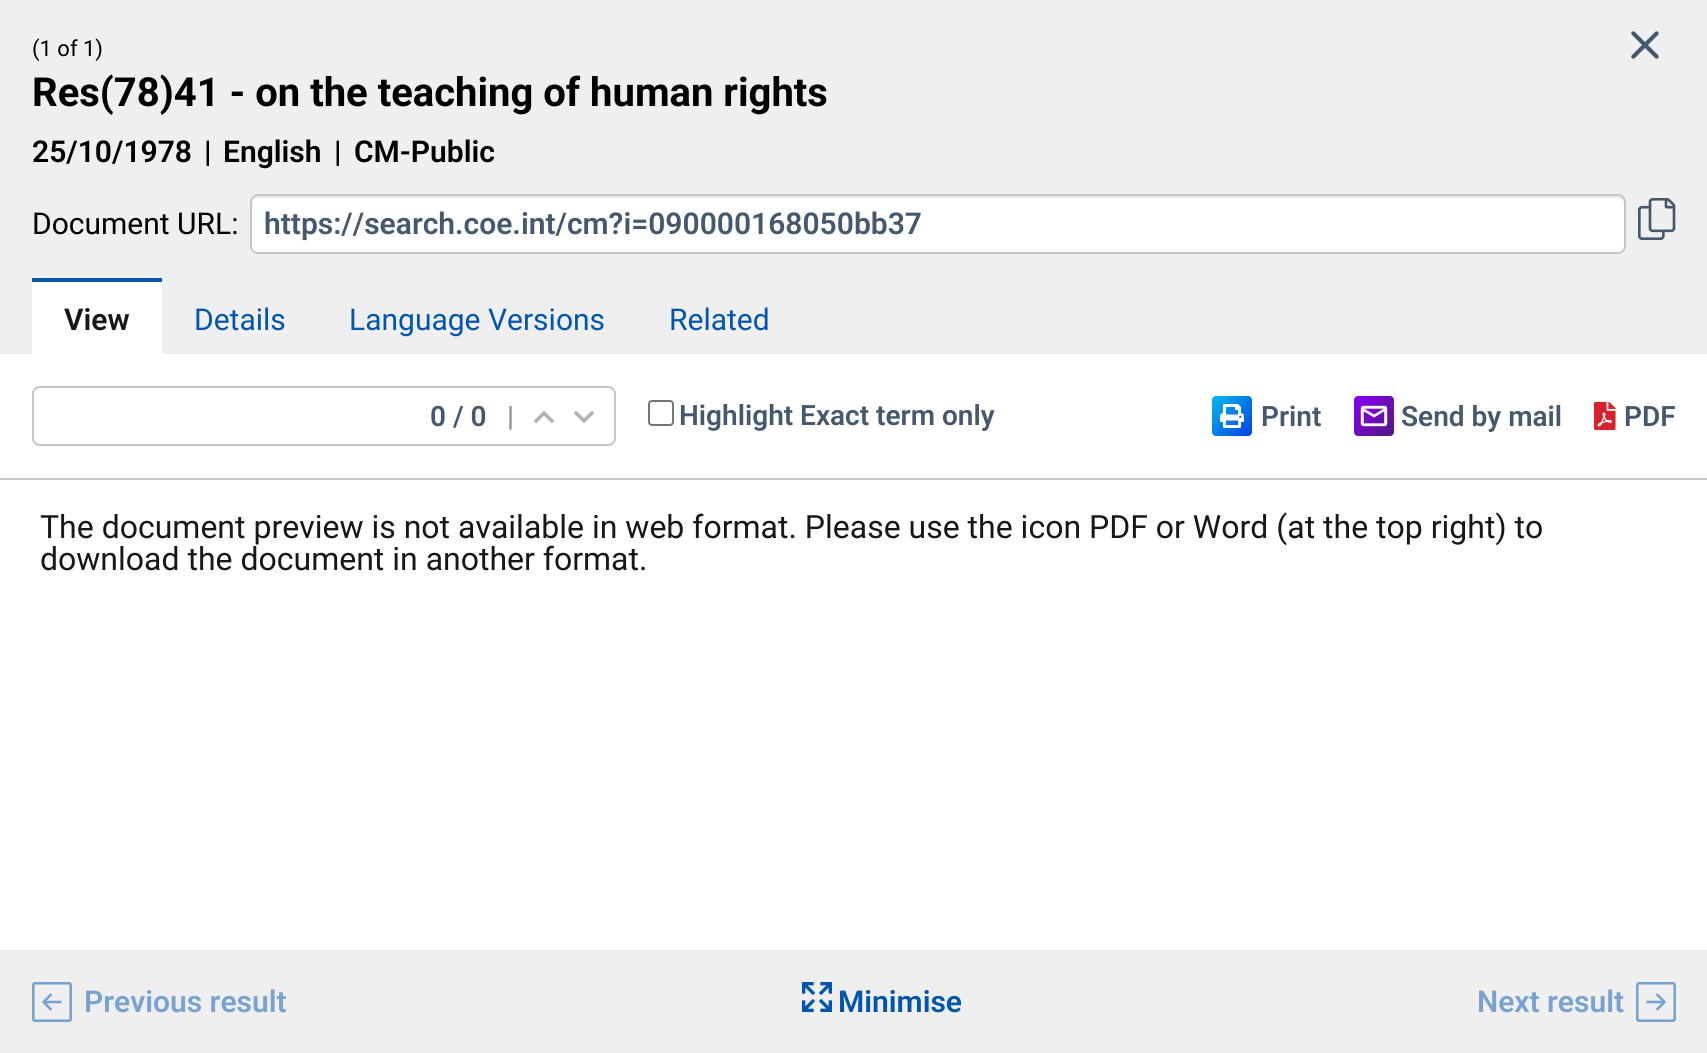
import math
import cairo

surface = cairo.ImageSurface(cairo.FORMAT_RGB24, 1707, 1053)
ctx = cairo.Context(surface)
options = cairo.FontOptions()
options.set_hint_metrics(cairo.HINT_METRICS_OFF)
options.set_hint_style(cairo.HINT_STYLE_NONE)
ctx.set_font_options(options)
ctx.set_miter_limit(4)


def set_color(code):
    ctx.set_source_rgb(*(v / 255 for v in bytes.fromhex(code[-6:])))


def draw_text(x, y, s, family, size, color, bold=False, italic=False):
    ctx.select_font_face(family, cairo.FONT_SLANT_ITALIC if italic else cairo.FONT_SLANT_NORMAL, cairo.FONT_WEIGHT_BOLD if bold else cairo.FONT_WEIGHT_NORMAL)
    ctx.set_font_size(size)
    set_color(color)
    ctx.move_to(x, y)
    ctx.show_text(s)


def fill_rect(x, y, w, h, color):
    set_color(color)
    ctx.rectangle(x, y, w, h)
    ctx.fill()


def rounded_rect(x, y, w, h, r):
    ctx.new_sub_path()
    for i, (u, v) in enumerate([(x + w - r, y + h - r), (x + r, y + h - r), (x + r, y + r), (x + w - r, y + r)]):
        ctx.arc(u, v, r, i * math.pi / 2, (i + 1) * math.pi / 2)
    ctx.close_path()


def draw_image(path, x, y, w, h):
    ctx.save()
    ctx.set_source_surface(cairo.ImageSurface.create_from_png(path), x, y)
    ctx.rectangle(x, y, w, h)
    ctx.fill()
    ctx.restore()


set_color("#ffffff")
ctx.paint()
fill_rect(0, 0, 1707, 354, "#efefef")
draw_text(32, 56, "(1 of 1)", "Roboto", 22, "#000000")
draw_text(32, 106, "Res(78)41 - on the teaching of human rights", "Roboto", 40, "#000000", bold=True)
draw_text(32, 162, "25/10/1978", "Roboto SemiBold", 30, "#000000")
draw_text(204, 162, "|", "Roboto SemiBold", 30, "#000000")
draw_text(223, 162, "English", "Roboto SemiBold", 30, "#000000")
draw_text(334, 162, "|", "Roboto SemiBold", 30, "#000000")
draw_text(354, 162, "CM-Public", "Roboto SemiBold", 30, "#000000")
draw_text(32, 234, "Document URL:", "Roboto", 30, "#000000")
set_color("#ffffff")
rounded_rect(250, 194, 1376, 60, 8)
ctx.fill()
set_color("#ececec")
ctx.new_path()
ctx.move_to(258, 198)
ctx.line_to(1618, 198)
ctx.curve_to(1621, 198, 1624, 201, 1624, 204)
ctx.line_to(1624, 202)
ctx.curve_to(1624, 199, 1621, 196, 1618, 196)
ctx.line_to(258, 196)
ctx.curve_to(255, 196, 252, 199, 252, 202)
ctx.line_to(252, 204)
ctx.curve_to(252, 201, 255, 198, 258, 198)
ctx.close_path()
ctx.fill()
rounded_rect(251, 195, 1374, 58, 7)
set_color("#c6c6c6")
ctx.stroke()
draw_text(264, 234, "https://search.coe.int/cm?i=090000168050bb37", "Roboto SemiBold", 30, "#44596e")
draw_image("assets/img1.png", 1638, 198, 38, 42)
fill_rect(32, 282, 130, 72, "#ffffff")
fill_rect(32, 278, 130, 4, "#0055ae")
draw_text(64, 330, "View", "Roboto SemiBold", 30, "#171717")
draw_text(194, 330, "Details", "Roboto", 30, "#0055ae")
draw_text(349, 330, "Language Versions", "Roboto", 30, "#0055ae")
draw_text(669, 330, "Related", "Roboto", 30, "#0055ae")
draw_image("assets/img2.png", 1631, 31, 28, 28)
fill_rect(0, 478, 1707, 2, "#c6c6c6")
rounded_rect(33, 387, 582, 58, 7)
ctx.stroke()
draw_text(430, 426, "0 / 0", "Roboto SemiBold", 28, "#44596e")
draw_text(507, 426, "|", "Roboto SemiBold", 28, "#8d8d8d")
draw_image("assets/img3.png", 534, 411, 20, 12)
draw_image("assets/img4.png", 574, 411, 20, 12)
rounded_rect(649, 401, 24, 24, 3)
set_color("#767676")
ctx.stroke()
draw_text(679, 425, "Highlight Exact term only", "Roboto SemiBold", 28, "#44596e")
draw_image("assets/img5.png", 1212, 396, 40, 40)
draw_text(1261, 426, "Print", "Roboto SemiBold", 28, "#44596e")
draw_image("assets/img6.png", 1354, 396, 40, 40)
draw_text(1401, 426, "Send by mail", "Roboto SemiBold", 28, "#44596e")
draw_image("assets/img7.png", 1594, 402, 22, 28)
draw_text(1624, 426, "PDF", "Roboto SemiBold", 28, "#44596e")
draw_text(40, 538, "The document preview is not available in web format. Please use the icon PDF or Word (at the top right) to", "Roboto", 32, "#171717")
draw_text(40, 570, "download the document in another format.", "Roboto", 32, "#171717")
fill_rect(0, 950, 1707, 103, "#efefef")
draw_image("assets/img8.png", 32, 982, 40, 40)
draw_text(84, 1012, "Previous result", "Roboto SemiBold", 30, "#78a2cf")
draw_image("assets/img9.png", 802, 982, 30, 30)
draw_text(838, 1012, "Minimise", "Roboto SemiBold", 30, "#0055ae")
draw_text(1477, 1012, "Next result", "Roboto SemiBold", 30, "#78a2cf")
draw_image("assets/img10.png", 1636, 982, 40, 40)
surface.write_to_png("output.png")
